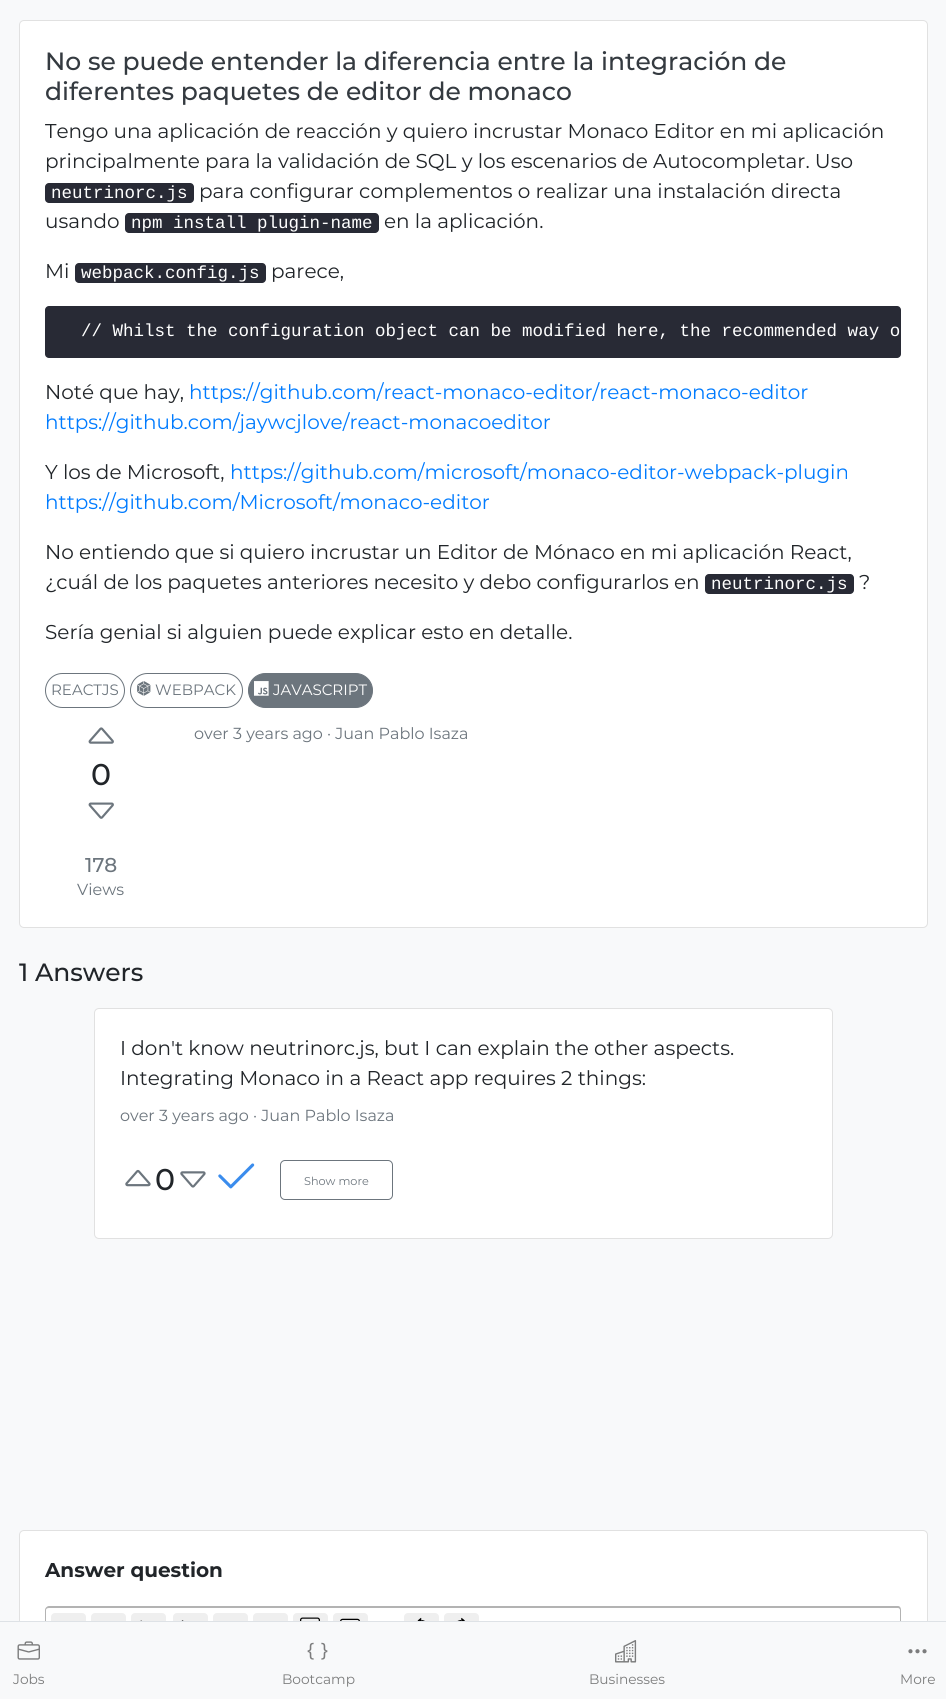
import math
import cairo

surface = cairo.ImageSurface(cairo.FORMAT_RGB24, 946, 1699)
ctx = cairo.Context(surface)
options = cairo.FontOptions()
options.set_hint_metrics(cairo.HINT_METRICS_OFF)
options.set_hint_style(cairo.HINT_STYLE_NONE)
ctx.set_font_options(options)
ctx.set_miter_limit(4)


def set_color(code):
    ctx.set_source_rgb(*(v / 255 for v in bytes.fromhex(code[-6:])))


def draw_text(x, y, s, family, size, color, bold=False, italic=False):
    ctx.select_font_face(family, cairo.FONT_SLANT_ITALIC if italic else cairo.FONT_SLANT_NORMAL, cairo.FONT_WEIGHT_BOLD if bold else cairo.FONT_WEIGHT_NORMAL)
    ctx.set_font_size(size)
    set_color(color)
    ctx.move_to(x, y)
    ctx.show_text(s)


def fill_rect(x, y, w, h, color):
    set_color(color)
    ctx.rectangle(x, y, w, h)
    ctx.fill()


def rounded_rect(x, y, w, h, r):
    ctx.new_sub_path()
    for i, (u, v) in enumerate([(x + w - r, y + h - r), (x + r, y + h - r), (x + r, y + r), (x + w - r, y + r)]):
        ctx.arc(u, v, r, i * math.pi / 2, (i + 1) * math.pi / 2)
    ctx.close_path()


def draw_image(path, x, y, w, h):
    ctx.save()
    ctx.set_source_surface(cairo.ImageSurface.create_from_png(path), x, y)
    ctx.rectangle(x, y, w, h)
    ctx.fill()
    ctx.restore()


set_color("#f8f9fa")
ctx.paint()
set_color("#ffffff")
rounded_rect(19, 20, 909, 908, 5)
ctx.fill()
rounded_rect(19.5, 20.5, 908, 907, 4.5)
ctx.set_source_rgba(0, 0, 0, 0.12)
ctx.set_line_width(1)
ctx.stroke()
draw_text(45, 70, "No se puede entender la diferencia entre la integración de", "Montserrat Medium", 25, "#343a40")
draw_text(45, 100, "diferentes paquetes de editor de monaco", "Montserrat Medium", 25, "#343a40")
draw_text(45, 138, "Tengo una aplicación de reacción y quiero incrustar Monaco Editor en mi aplicación", "Montserrat", 20, "#212529")
draw_text(45, 168, "principalmente para la validación de SQL y los escenarios de Autocompletar. Uso", "Montserrat", 20, "#212529")
set_color("#282a35")
rounded_rect(45, 183, 149, 20, 4)
ctx.fill()
draw_text(51, 198, "neutrinorc.js", "Liberation Mono", 17.5, "#ffffff")
draw_text(199, 198, "para configurar complementos o realizar una instalación directa", "Montserrat", 20, "#212529")
draw_text(45, 228, "usando", "Montserrat", 20, "#212529")
set_color("#282a35")
rounded_rect(125, 213, 254, 20, 4)
ctx.fill()
draw_text(131, 228, "npm install plugin-name", "Liberation Mono", 17.5, "#ffffff")
draw_text(384, 228, "en la aplicación.", "Montserrat", 20, "#212529")
draw_text(45, 278, "Mi", "Montserrat", 20, "#212529")
set_color("#282a35")
rounded_rect(75, 263, 191, 20, 4)
ctx.fill()
draw_text(81, 278, "webpack.config.js", "Liberation Mono", 17.5, "#ffffff")
draw_text(271, 278, "parece,", "Montserrat", 20, "#212529")
set_color("#282a35")
rounded_rect(45, 306, 856, 52, 4)
ctx.fill()
draw_text(81, 336, "// Whilst the configuration object can be modified here, the recommended way o", "Liberation Mono", 17.5, "#ffffff")
draw_text(45, 399, "Noté que hay,", "Montserrat", 20, "#212529")
draw_text(189, 399, "https://github.com/react-monaco-editor/react-monaco-editor", "Montserrat", 20, "#007bff")
draw_text(45, 429, "https://github.com/jaywcjlove/react-monacoeditor", "Montserrat", 20, "#007bff")
draw_text(45, 479, "Y los de Microsoft,", "Montserrat", 20, "#212529")
draw_text(230, 479, "https://github.com/microsoft/monaco-editor-webpack-plugin", "Montserrat", 20, "#007bff")
draw_text(45, 509, "https://github.com/Microsoft/monaco-editor", "Montserrat", 20, "#007bff")
draw_text(45, 559, "No entiendo que si quiero incrustar un Editor de Mónaco en mi aplicación React,", "Montserrat", 20, "#212529")
draw_text(45, 589, "¿cuál de los paquetes anteriores necesito y debo configurarlos en", "Montserrat", 20, "#212529")
set_color("#282a35")
rounded_rect(705, 574, 149, 20, 4)
ctx.fill()
draw_text(711, 589, "neutrinorc.js", "Liberation Mono", 17.5, "#ffffff")
draw_text(859, 589, "?", "Montserrat", 20, "#212529")
draw_text(45, 639, "Sería genial si alguien puede explicar esto en detalle.", "Montserrat", 20, "#212529")
rounded_rect(45.5, 673.5, 79, 34, 17)
set_color("#6c757d")
ctx.stroke()
draw_text(51, 695, "REACTJS", "Montserrat", 15, "#6c757d")
rounded_rect(130.5, 673.5, 112, 34, 17)
ctx.stroke()
draw_image("assets/img1.png", 137, 681, 14, 15)
draw_text(155, 695, "WEBPACK", "Montserrat", 15, "#6c757d")
rounded_rect(248.5, 673.5, 124, 34, 17)
ctx.fill_preserve()
ctx.stroke()
draw_image("assets/img2.png", 254, 681, 15, 15)
draw_text(273, 695, "JAVASCRIPT", "Montserrat", 15, "#ffffff")
draw_text(194, 739, "over 3 years ago · Juan Pablo Isaza", "Montserrat", 16, "#6c757d")
draw_image("assets/img3.png", 88, 727, 26, 17)
draw_text(91, 785, "0", "Montserrat Medium", 30, "#212529")
draw_image("assets/img4.png", 88, 802, 26, 17)
draw_text(85, 872, "178", "Montserrat Medium", 20, "#6c757d")
draw_text(77, 895, "Views", "Montserrat", 16, "#6c757d")
draw_text(19, 981, "1 Answers", "Montserrat Medium", 25, "#212529")
set_color("#ffffff")
rounded_rect(94, 1008, 739, 231, 5)
ctx.fill()
rounded_rect(94.5, 1008.5, 738, 230, 4.5)
ctx.set_source_rgba(0, 0, 0, 0.12)
ctx.stroke()
draw_text(120, 1055, "I don't know neutrinorc.js, but I can explain the other aspects.", "Montserrat", 20, "#212529")
draw_text(120, 1085, "Integrating Monaco in a React app requires 2 things:", "Montserrat", 20, "#212529")
draw_text(120, 1121, "over 3 years ago · Juan Pablo Isaza", "Montserrat", 16, "#6c757d")
draw_image("assets/img5.png", 125, 1169, 26, 18)
draw_text(155, 1190, "0", "Montserrat Medium", 30, "#212529")
draw_image("assets/img6.png", 180, 1171, 26, 17)
draw_image("assets/img7.png", 218, 1163, 37, 26)
rounded_rect(280.5, 1160.5, 112, 39, 4.5)
set_color("#6c757d")
ctx.stroke()
draw_text(304, 1185, "Show more", "Montserrat", 11.25, "#6c757d")
set_color("#ffffff")
rounded_rect(19, 1530, 909, 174, 5)
ctx.fill()
rounded_rect(19.5, 1530.5, 908, 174, 4.5)
ctx.set_source_rgba(0, 0, 0, 0.12)
ctx.stroke()
draw_text(45, 1577, "Answer question", "Montserrat", 20, "#212529", bold=True)
set_color("#b3b3b3")
ctx.set_fill_rule(cairo.FILL_RULE_EVEN_ODD)
ctx.new_path()
ctx.move_to(49, 1606)
ctx.line_to(898, 1606)
ctx.curve_to(900, 1606, 901, 1608, 901, 1610)
ctx.line_to(901, 1656)
ctx.line_to(45, 1656)
ctx.line_to(45, 1610)
ctx.curve_to(45, 1608, 47, 1606, 49, 1606)
ctx.close_path()
ctx.move_to(49, 1608)
ctx.line_to(898, 1608)
ctx.curve_to(899, 1608, 900, 1609, 900, 1610)
ctx.line_to(900, 1656)
ctx.line_to(46, 1656)
ctx.line_to(46, 1610)
ctx.curve_to(46, 1609, 47, 1608, 49, 1608)
ctx.close_path()
ctx.fill()
set_color("#efefef")
rounded_rect(51, 1613, 35, 32, 4)
ctx.fill()
rounded_rect(91, 1613, 35, 32, 4)
ctx.fill()
rounded_rect(131, 1613, 35, 32, 4)
ctx.fill()
draw_image("assets/img8.png", 140, 1620, 2, 1)
rounded_rect(173, 1613, 35, 32, 4)
ctx.fill()
draw_image("assets/img9.png", 181, 1620, 3, 1)
rounded_rect(213, 1613, 35, 32, 4)
ctx.fill()
rounded_rect(253, 1613, 35, 32, 4)
ctx.fill()
rounded_rect(293, 1613, 35, 32, 4)
ctx.fill()
draw_image("assets/img10.png", 300, 1617, 20, 4)
rounded_rect(333, 1613, 35, 32, 4)
ctx.fill()
draw_image("assets/img11.png", 340, 1618, 20, 3)
rounded_rect(404, 1613, 35, 32, 4)
ctx.fill()
draw_image("assets/img12.png", 417, 1617, 8, 4)
rounded_rect(444, 1613, 35, 32, 4)
ctx.fill()
draw_image("assets/img13.png", 457, 1617, 8, 4)
fill_rect(19, 1622, 909, 77, "#f8f9fa")
fill_rect(0, 1621, 946, 1, "#dee2e6")
draw_image("assets/img14.png", 17, 1641, 23, 19)
draw_text(13, 1684, "Jobs", "Montserrat", 13.75, "#7c7d7d")
draw_image("assets/img15.png", 307, 1642, 21, 18)
draw_text(282, 1684, "Bootcamp", "Montserrat", 13.75, "#7c7d7d")
draw_image("assets/img16.png", 615, 1640, 22, 23)
draw_text(589, 1684, "Businesses", "Montserrat", 13.75, "#7c7d7d")
draw_image("assets/img17.png", 908, 1649, 19, 5)
draw_text(900, 1684, "More", "Montserrat", 13.75, "#7c7d7d")
surface.write_to_png("output.png")
